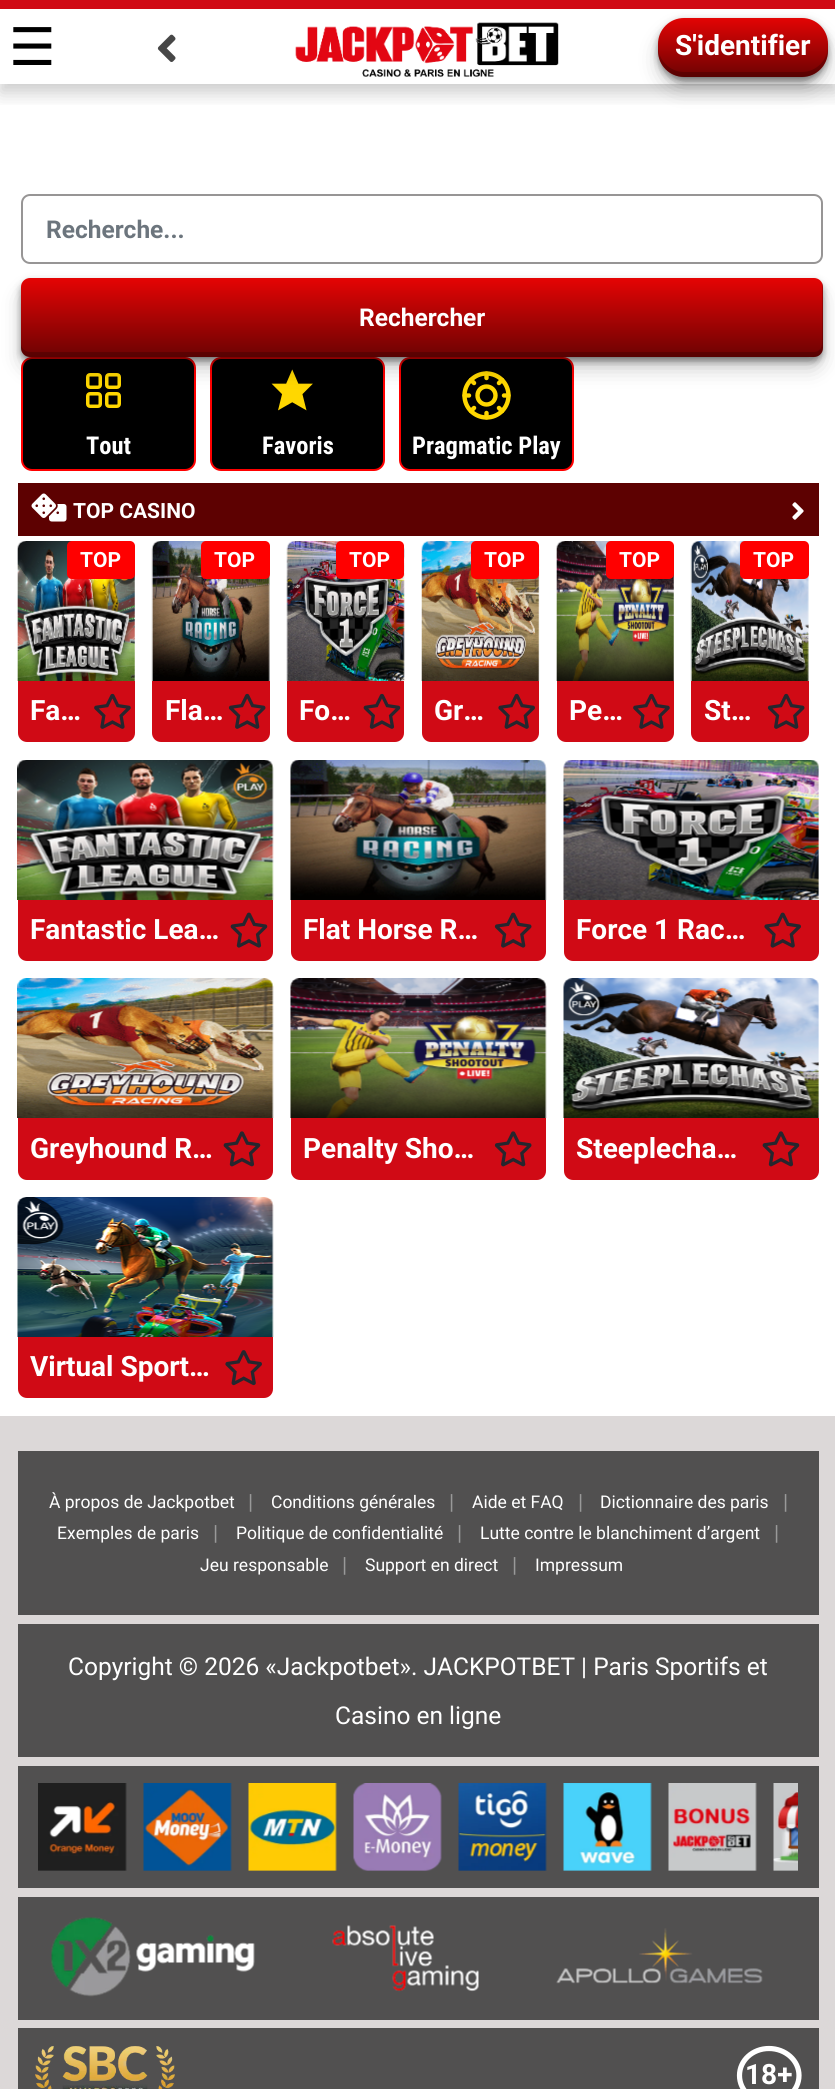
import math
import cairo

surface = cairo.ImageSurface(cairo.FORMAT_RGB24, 835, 2089)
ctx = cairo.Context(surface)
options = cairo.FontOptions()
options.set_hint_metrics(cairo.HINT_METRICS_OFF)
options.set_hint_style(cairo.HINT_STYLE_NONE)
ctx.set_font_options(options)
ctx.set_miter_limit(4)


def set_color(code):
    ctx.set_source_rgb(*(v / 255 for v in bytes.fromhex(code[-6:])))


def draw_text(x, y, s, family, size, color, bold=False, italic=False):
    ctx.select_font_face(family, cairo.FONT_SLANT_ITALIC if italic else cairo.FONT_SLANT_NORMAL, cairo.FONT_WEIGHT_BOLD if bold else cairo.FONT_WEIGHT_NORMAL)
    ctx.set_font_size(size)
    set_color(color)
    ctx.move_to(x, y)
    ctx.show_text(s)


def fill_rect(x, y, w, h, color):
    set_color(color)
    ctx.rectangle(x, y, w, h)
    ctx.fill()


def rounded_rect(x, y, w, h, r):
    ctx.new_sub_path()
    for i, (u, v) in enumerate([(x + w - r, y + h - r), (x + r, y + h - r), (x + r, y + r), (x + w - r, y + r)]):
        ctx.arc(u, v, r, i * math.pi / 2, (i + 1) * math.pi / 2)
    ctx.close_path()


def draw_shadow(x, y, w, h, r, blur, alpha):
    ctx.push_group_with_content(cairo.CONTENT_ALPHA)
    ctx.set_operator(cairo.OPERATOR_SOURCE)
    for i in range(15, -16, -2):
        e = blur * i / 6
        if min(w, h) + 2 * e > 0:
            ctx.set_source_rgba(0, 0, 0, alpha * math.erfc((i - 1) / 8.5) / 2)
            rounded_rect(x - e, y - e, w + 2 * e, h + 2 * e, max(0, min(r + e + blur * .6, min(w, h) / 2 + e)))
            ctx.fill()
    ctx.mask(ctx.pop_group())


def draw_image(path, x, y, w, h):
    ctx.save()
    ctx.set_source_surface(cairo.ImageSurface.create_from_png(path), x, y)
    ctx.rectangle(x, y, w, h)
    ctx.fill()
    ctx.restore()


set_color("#ffffff")
ctx.paint()
ctx.save()
ctx.rectangle(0, 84, 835, 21)
ctx.clip()
set_color("#000000")
draw_shadow(0, 9, 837, 84, 0, 9, 0.2)
ctx.restore()
fill_rect(0, 0, 835, 9, "#d00a15")
draw_text(9, 65, "☰", "DejaVu Sans", 52, "#000000")
draw_image("assets/img1.png", 157, 34, 19, 28)
draw_image("assets/img2.png", 295, 22, 264, 55)
set_color("#000000")
draw_shadow(663, 35, 160, 49, 21, 11.5, 0.3)
draw_shadow(658, 21, 170, 60, 26, 3.5, 0.4)
gradient = cairo.LinearGradient(743, 17, 743, 77)
gradient.add_color_stop_rgba(0, 0.898, 0.016, 0.016, 1)
gradient.add_color_stop_rgba(1, 0.427, 0.012, 0.012, 1)
ctx.set_source(gradient)
rounded_rect(658, 18, 170, 59, 26)
ctx.fill()
ctx.set_source_rgba(0, 0, 0, 0.2)
ctx.new_path()
ctx.move_to(658, 46)
ctx.line_to(658, 51)
ctx.curve_to(658, 65, 670, 77, 684, 77)
ctx.line_to(802, 77)
ctx.curve_to(816, 77, 828, 65, 828, 51)
ctx.line_to(828, 46)
ctx.curve_to(828, 60, 816, 72, 802, 72)
ctx.line_to(684, 72)
ctx.curve_to(670, 72, 658, 60, 658, 46)
ctx.close_path()
ctx.fill()
draw_text(675, 55, "S'identifier", "Roboto", 28, "#ffffff", bold=True)
rounded_rect(22, 195, 800, 68, 8)
set_color("#979595")
ctx.stroke()
draw_text(46, 238, "Recherche...", "Roboto", 24.5, "#6c757d", bold=True)
set_color("#000000")
rounded_rect(22, 358, 173, 112, 10)
ctx.fill_preserve()
set_color("#ff0000")
ctx.stroke()
rounded_rect(87.75, 374.75, 12.5, 12.5, 2.25)
set_color("#ffd700")
ctx.set_line_width(3.5)
ctx.stroke()
rounded_rect(106.75, 374.75, 12.5, 12.5, 2.25)
ctx.stroke()
rounded_rect(106.75, 393.75, 12.5, 12.5, 2.25)
ctx.stroke()
rounded_rect(87.75, 393.75, 12.5, 12.5, 2.25)
ctx.stroke()
set_color("#000000")
rounded_rect(211, 358, 173, 112, 10)
ctx.fill_preserve()
set_color("#ff0000")
ctx.set_line_width(2)
ctx.stroke()
draw_image("assets/img3.png", 271, 369, 42, 42)
set_color("#000000")
rounded_rect(400, 358, 173, 112, 10)
ctx.fill_preserve()
set_color("#ff0000")
ctx.stroke()
draw_image("assets/img4.png", 462, 371, 49, 49)
set_color("#000000")
draw_shadow(26, 296, 791, 68, 4, 11.5, 0.3)
draw_shadow(21, 282, 802, 79, 9, 3.5, 0.4)
gradient = cairo.LinearGradient(422, 278, 422, 357)
gradient.add_color_stop_rgba(0, 0.898, 0.016, 0.016, 1)
gradient.add_color_stop_rgba(1, 0.427, 0.012, 0.012, 1)
ctx.set_source(gradient)
rounded_rect(21, 278, 802, 79, 9)
ctx.fill()
ctx.set_source_rgba(0, 0, 0, 0.2)
ctx.new_path()
ctx.move_to(21, 343)
ctx.line_to(21, 348)
ctx.curve_to(21, 353, 25, 357, 30, 357)
ctx.line_to(814, 357)
ctx.curve_to(819, 357, 823, 353, 823, 348)
ctx.line_to(823, 287)
ctx.curve_to(823, 286, 823, 284, 822, 283)
ctx.line_to(822, 343)
ctx.curve_to(822, 348, 819, 352, 814, 352)
ctx.line_to(30, 352)
ctx.curve_to(25, 352, 21, 348, 21, 343)
ctx.close_path()
ctx.fill()
draw_text(359, 326, "Rechercher", "Roboto", 24.5, "#ffffff", bold=True)
draw_text(86, 454, "Tout", "Roboto Condensed", 24.5, "#ffffff", bold=True)
draw_text(262, 454, "Favoris", "Roboto Condensed", 24.5, "#ffffff", bold=True)
draw_text(412, 454, "Pragmatic Play", "Roboto Condensed", 24.5, "#ffffff", bold=True)
fill_rect(18, 483, 801, 53, "#5d0101")
draw_image("assets/img5.png", 31, 493, 36, 29)
draw_text(73, 518, "TOP CASINO", "Roboto", 21, "#ffffff", bold=True)
draw_image("assets/img6.png", 792, 502, 12, 18)
draw_image("assets/img7.png", 17, 541, 118, 140)
set_color("#ff0000")
rounded_rect(67, 541, 68, 38, 5)
ctx.fill()
draw_text(80, 567, "TOP", "Roboto", 21, "#ffffff", bold=True)
set_color("#d00a15")
ctx.new_path()
ctx.move_to(18, 681)
ctx.line_to(135, 681)
ctx.line_to(135, 733)
ctx.curve_to(135, 738, 131, 742, 126, 742)
ctx.line_to(27, 742)
ctx.curve_to(22, 742, 18, 738, 18, 733)
ctx.close_path()
ctx.fill()
draw_text(30, 720, "Fa…", "Roboto", 28, "#ffffff", bold=True)
draw_image("assets/img8.png", 94, 693, 37, 36)
draw_image("assets/img9.png", 151, 541, 119, 140)
set_color("#ff0000")
rounded_rect(201, 541, 69, 38, 5)
ctx.fill()
draw_text(214, 567, "TOP", "Roboto", 21, "#ffffff", bold=True)
set_color("#d00a15")
ctx.new_path()
ctx.move_to(152, 681)
ctx.line_to(270, 681)
ctx.line_to(270, 733)
ctx.curve_to(270, 738, 266, 742, 261, 742)
ctx.line_to(161, 742)
ctx.curve_to(156, 742, 152, 738, 152, 733)
ctx.close_path()
ctx.fill()
draw_text(165, 720, "Fla…", "Roboto", 28, "#ffffff", bold=True)
draw_image("assets/img10.png", 228, 693, 38, 36)
draw_image("assets/img11.png", 286, 541, 119, 140)
set_color("#ff0000")
rounded_rect(336, 541, 68, 38, 5)
ctx.fill()
draw_text(349, 567, "TOP", "Roboto", 21, "#ffffff", bold=True)
set_color("#d00a15")
ctx.new_path()
ctx.move_to(287, 681)
ctx.line_to(404, 681)
ctx.line_to(404, 733)
ctx.curve_to(404, 738, 400, 742, 395, 742)
ctx.line_to(296, 742)
ctx.curve_to(291, 742, 287, 738, 287, 733)
ctx.close_path()
ctx.fill()
draw_text(299, 720, "Fo…", "Roboto", 28, "#ffffff", bold=True)
draw_image("assets/img12.png", 363, 693, 38, 36)
draw_image("assets/img13.png", 421, 541, 119, 140)
set_color("#ff0000")
rounded_rect(471, 541, 68, 38, 5)
ctx.fill()
draw_text(484, 567, "TOP", "Roboto", 21, "#ffffff", bold=True)
set_color("#d00a15")
ctx.new_path()
ctx.move_to(422, 681)
ctx.line_to(539, 681)
ctx.line_to(539, 733)
ctx.curve_to(539, 738, 535, 742, 530, 742)
ctx.line_to(431, 742)
ctx.curve_to(426, 742, 422, 738, 422, 733)
ctx.close_path()
ctx.fill()
draw_text(434, 720, "Gr…", "Roboto", 28, "#ffffff", bold=True)
draw_image("assets/img14.png", 498, 693, 37, 36)
draw_image("assets/img15.png", 556, 541, 118, 140)
set_color("#ff0000")
rounded_rect(606, 541, 68, 38, 5)
ctx.fill()
draw_text(619, 567, "TOP", "Roboto", 21, "#ffffff", bold=True)
set_color("#d00a15")
ctx.new_path()
ctx.move_to(557, 681)
ctx.line_to(674, 681)
ctx.line_to(674, 733)
ctx.curve_to(674, 738, 670, 742, 665, 742)
ctx.line_to(566, 742)
ctx.curve_to(561, 742, 557, 738, 557, 733)
ctx.close_path()
ctx.fill()
draw_text(569, 720, "Pe…", "Roboto", 28, "#ffffff", bold=True)
draw_image("assets/img8.png", 633, 693, 37, 36)
draw_image("assets/img16.png", 690, 541, 119, 140)
set_color("#ff0000")
rounded_rect(740, 541, 69, 38, 5)
ctx.fill()
draw_text(753, 567, "TOP", "Roboto", 21, "#ffffff", bold=True)
set_color("#d00a15")
ctx.new_path()
ctx.move_to(691, 681)
ctx.line_to(809, 681)
ctx.line_to(809, 733)
ctx.curve_to(809, 738, 805, 742, 800, 742)
ctx.line_to(700, 742)
ctx.curve_to(695, 742, 691, 738, 691, 733)
ctx.close_path()
ctx.fill()
draw_text(704, 720, "St…", "Roboto", 28, "#ffffff", bold=True)
draw_image("assets/img10.png", 767, 693, 38, 36)
draw_image("assets/img17.png", 17, 760, 257, 140)
set_color("#d00a15")
ctx.new_path()
ctx.move_to(18, 900)
ctx.line_to(273, 900)
ctx.line_to(273, 952)
ctx.curve_to(273, 957, 269, 961, 264, 961)
ctx.line_to(27, 961)
ctx.curve_to(22, 961, 18, 957, 18, 952)
ctx.close_path()
ctx.fill()
draw_text(30, 939, "Fantastic Lea…", "Roboto", 28, "#ffffff", bold=True)
draw_image("assets/img18.png", 230, 912, 38, 36)
draw_image("assets/img19.png", 290, 760, 257, 140)
set_color("#d00a15")
ctx.new_path()
ctx.move_to(291, 900)
ctx.line_to(546, 900)
ctx.line_to(546, 952)
ctx.curve_to(546, 957, 542, 961, 537, 961)
ctx.line_to(300, 961)
ctx.curve_to(295, 961, 291, 957, 291, 952)
ctx.close_path()
ctx.fill()
draw_text(303, 939, "Flat Horse R…", "Roboto", 28, "#ffffff", bold=True)
draw_image("assets/img20.png", 494, 912, 38, 36)
draw_image("assets/img21.png", 563, 760, 256, 140)
set_color("#d00a15")
ctx.new_path()
ctx.move_to(564, 900)
ctx.line_to(819, 900)
ctx.line_to(819, 952)
ctx.curve_to(819, 957, 815, 961, 810, 961)
ctx.line_to(573, 961)
ctx.curve_to(568, 961, 564, 957, 564, 952)
ctx.close_path()
ctx.fill()
draw_text(576, 939, "Force 1 Rac…", "Roboto", 28, "#ffffff", bold=True)
draw_image("assets/img22.png", 764, 912, 37, 36)
draw_image("assets/img23.png", 17, 978, 257, 140)
set_color("#d00a15")
ctx.new_path()
ctx.move_to(18, 1118)
ctx.line_to(273, 1118)
ctx.line_to(273, 1171)
ctx.curve_to(273, 1176, 269, 1180, 264, 1180)
ctx.line_to(27, 1180)
ctx.curve_to(22, 1180, 18, 1176, 18, 1171)
ctx.close_path()
ctx.fill()
draw_text(30, 1158, "Greyhound R…", "Roboto", 28, "#ffffff", bold=True)
draw_image("assets/img24.png", 223, 1131, 38, 36)
draw_image("assets/img25.png", 290, 978, 257, 140)
set_color("#d00a15")
ctx.new_path()
ctx.move_to(291, 1118)
ctx.line_to(546, 1118)
ctx.line_to(546, 1171)
ctx.curve_to(546, 1176, 542, 1180, 537, 1180)
ctx.line_to(300, 1180)
ctx.curve_to(295, 1180, 291, 1176, 291, 1171)
ctx.close_path()
ctx.fill()
draw_text(303, 1158, "Penalty Sho…", "Roboto", 28, "#ffffff", bold=True)
draw_image("assets/img26.png", 494, 1131, 38, 36)
draw_image("assets/img27.png", 563, 978, 256, 140)
set_color("#d00a15")
ctx.new_path()
ctx.move_to(564, 1118)
ctx.line_to(819, 1118)
ctx.line_to(819, 1171)
ctx.curve_to(819, 1176, 815, 1180, 810, 1180)
ctx.line_to(573, 1180)
ctx.curve_to(568, 1180, 564, 1176, 564, 1171)
ctx.close_path()
ctx.fill()
draw_text(576, 1158, "Steeplecha…", "Roboto", 28, "#ffffff", bold=True)
draw_image("assets/img24.png", 762, 1131, 38, 36)
draw_image("assets/img28.png", 17, 1197, 257, 140)
set_color("#d00a15")
ctx.new_path()
ctx.move_to(18, 1337)
ctx.line_to(273, 1337)
ctx.line_to(273, 1389)
ctx.curve_to(273, 1394, 269, 1398, 264, 1398)
ctx.line_to(27, 1398)
ctx.curve_to(22, 1398, 18, 1394, 18, 1389)
ctx.close_path()
ctx.fill()
draw_text(30, 1376, "Virtual Sport…", "Roboto", 28, "#ffffff", bold=True)
draw_image("assets/img29.png", 225, 1350, 37, 36)
fill_rect(0, 1416, 835, 673, "#dcd8d8")
fill_rect(18, 1451, 801, 164, "#515050")
draw_text(49, 1508, "À propos de Jackpotbet", "Roboto", 17.5, "#ffffff")
draw_text(248, 1509, "|", "Roboto", 21, "#999999")
draw_text(271, 1508, "Conditions générales", "Roboto", 17.5, "#ffffff")
draw_text(449, 1509, "|", "Roboto", 21, "#999999")
draw_text(472, 1508, "Aide et FAQ", "Roboto", 17.5, "#ffffff")
draw_text(578, 1509, "|", "Roboto", 21, "#999999")
draw_text(600, 1508, "Dictionnaire des paris", "Roboto", 17.5, "#ffffff")
draw_text(783, 1509, "|", "Roboto", 21, "#999999")
draw_text(57, 1539, "Exemples de paris", "Roboto", 17.5, "#ffffff")
draw_text(213, 1540, "|", "Roboto", 21, "#999999")
draw_text(236, 1539, "Politique de confidentialité", "Roboto", 17.5, "#ffffff")
draw_text(457, 1540, "|", "Roboto", 21, "#999999")
draw_text(480, 1539, "Lutte contre le blanchiment d’argent", "Roboto", 17.5, "#ffffff")
draw_text(774, 1540, "|", "Roboto", 21, "#999999")
draw_text(200, 1571, "Jeu responsable", "Roboto", 17.5, "#ffffff")
draw_text(342, 1572, "|", "Roboto", 21, "#999999")
draw_text(365, 1571, "Support en direct", "Roboto", 17.5, "#ffffff")
draw_text(512, 1572, "|", "Roboto", 21, "#999999")
draw_text(535, 1571, "Impressum", "Roboto", 17.5, "#ffffff")
fill_rect(18, 1624, 801, 133, "#515050")
draw_text(68, 1675, "Copyright © 2026 «Jackpotbet». JACKPOTBET | Paris Sportifs et", "Roboto", 24.5, "#ffffff")
draw_text(335, 1724, "Casino en ligne", "Roboto", 24.5, "#ffffff")
fill_rect(18, 1766, 801, 122, "#515050")
draw_image("assets/img30.png", 38, 1783, 89, 88)
draw_image("assets/img31.png", 143, 1783, 89, 88)
draw_image("assets/img32.png", 248, 1783, 89, 88)
draw_image("assets/img33.png", 353, 1783, 89, 88)
draw_image("assets/img34.png", 458, 1783, 89, 88)
draw_image("assets/img35.png", 563, 1783, 89, 88)
draw_image("assets/img36.png", 668, 1783, 89, 88)
draw_image("assets/img37.png", 773, 1783, 25, 88)
fill_rect(18, 1897, 801, 123, "#515050")
draw_image("assets/img38.png", 51, 1917, 204, 80)
draw_image("assets/img39.png", 332, 1925, 147, 67)
draw_image("assets/img40.png", 556, 1928, 207, 56)
fill_rect(18, 2028, 801, 61, "#515050")
draw_image("assets/img41.png", 35, 2046, 140, 43)
ctx.new_path()
ctx.move_to(769, 2048.5)
ctx.curve_to(785.5, 2048.5, 799, 2060.5, 799, 2075.5)
ctx.curve_to(799, 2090.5, 785.5, 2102.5, 769, 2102.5)
ctx.curve_to(752.5, 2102.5, 739.5, 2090.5, 739.5, 2075.5)
ctx.curve_to(739.5, 2060.5, 752.5, 2048.5, 769, 2048.5)
ctx.close_path()
set_color("#ffffff")
ctx.set_line_width(5.2)
ctx.stroke()
draw_text(745, 2084, "18+", "Roboto", 28, "#ffffff", bold=True)
surface.write_to_png("output.png")
